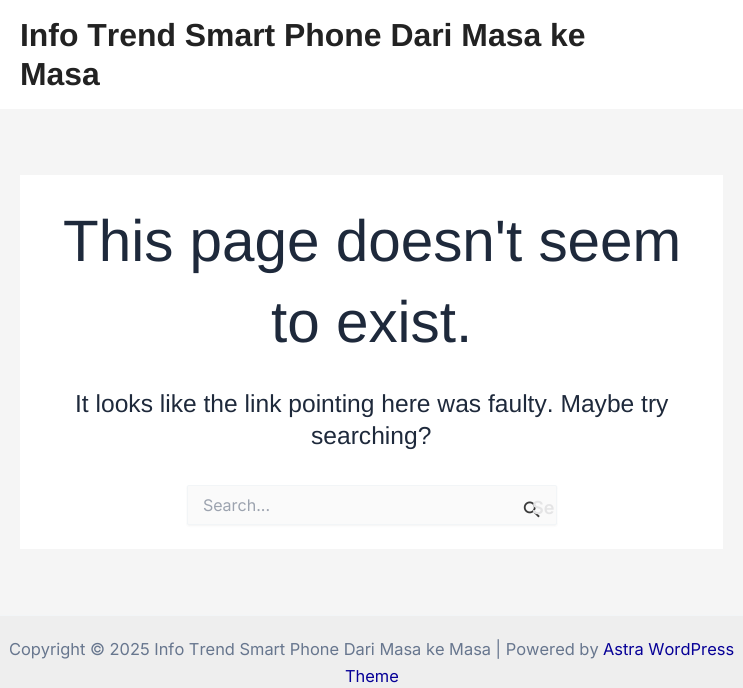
import math
import cairo

surface = cairo.ImageSurface(cairo.FORMAT_RGB24, 743, 688)
ctx = cairo.Context(surface)
options = cairo.FontOptions()
options.set_hint_metrics(cairo.HINT_METRICS_OFF)
options.set_hint_style(cairo.HINT_STYLE_NONE)
ctx.set_font_options(options)
ctx.set_miter_limit(4)


def set_color(code):
    ctx.set_source_rgb(*(v / 255 for v in bytes.fromhex(code[-6:])))


def draw_text(x, y, s, family, size, color, bold=False, italic=False):
    ctx.select_font_face(family, cairo.FONT_SLANT_ITALIC if italic else cairo.FONT_SLANT_NORMAL, cairo.FONT_WEIGHT_BOLD if bold else cairo.FONT_WEIGHT_NORMAL)
    ctx.set_font_size(size)
    set_color(color)
    ctx.move_to(x, y)
    ctx.show_text(s)


def fill_rect(x, y, w, h, color):
    set_color(color)
    ctx.rectangle(x, y, w, h)
    ctx.fill()


def rounded_rect(x, y, w, h, r):
    ctx.new_sub_path()
    for i, (u, v) in enumerate([(x + w - r, y + h - r), (x + r, y + h - r), (x + r, y + r), (x + w - r, y + r)]):
        ctx.arc(u, v, r, i * math.pi / 2, (i + 1) * math.pi / 2)
    ctx.close_path()


def draw_shadow(x, y, w, h, r, blur, alpha):
    ctx.push_group_with_content(cairo.CONTENT_ALPHA)
    ctx.set_operator(cairo.OPERATOR_SOURCE)
    for i in range(15, -16, -2):
        e = blur * i / 6
        if min(w, h) + 2 * e > 0:
            ctx.set_source_rgba(0, 0, 0, alpha * math.erfc((i - 1) / 8.5) / 2)
            rounded_rect(x - e, y - e, w + 2 * e, h + 2 * e, max(0, min(r + e + blur * .6, min(w, h) / 2 + e)))
            ctx.fill()
    ctx.mask(ctx.pop_group())


def draw_image(path, x, y, w, h):
    ctx.save()
    ctx.set_source_surface(cairo.ImageSurface.create_from_png(path), x, y)
    ctx.rectangle(x, y, w, h)
    ctx.fill()
    ctx.restore()


set_color("#f5f5f5")
ctx.paint()
fill_rect(0, 0, 743, 109, "#ffffff")
draw_text(20, 46, "Info Trend Smart Phone Dari Masa ke", "Liberation Sans", 31.9, "#222222", bold=True)
draw_text(20, 85, "Masa", "Liberation Sans", 31.9, "#222222", bold=True)
fill_rect(20, 175, 703, 374, "#ffffff")
draw_text(63, 261, "This page doesn't seem", "Liberation Sans", 58.4, "#1e293b")
draw_text(271, 342, "to exist.", "Liberation Sans", 58.4, "#1e293b")
draw_text(75, 412, "It looks like the link pointing here was faulty. Maybe try", "Liberation Sans", 24.6, "#1e293b")
draw_text(311, 444, "searching?", "Liberation Sans", 24.6, "#1e293b")
set_color("#000000")
draw_shadow(187, 486, 370, 40, 2, 1, 0.05)
set_color("#fafafa")
rounded_rect(187.5, 485.5, 369, 39, 1.5)
ctx.fill_preserve()
set_color("#f2f5f7")
ctx.set_line_width(1)
ctx.stroke()
draw_text(203, 511, "Search...", "Inter", 16, "#9ca3af")
draw_image("assets/img1.png", 523, 501, 17, 17)
draw_text(532, 514, "Se", "Inter SemiBold", 18, "#e4e4e5")
fill_rect(0, 616, 743, 72, "#eeeeee")
fill_rect(0, 615, 743, 1, "#f2f5f7")
draw_text(9, 655, "Copyright © 2025 Info Trend Smart Phone Dari Masa ke Masa | Powered by", "Inter", 16.4, "#67768e")
draw_text(603, 655, "Astra WordPress", "Inter", 16.4, "#060097")
draw_text(345, 682, "Theme", "Inter", 16.4, "#060097")
surface.write_to_png("output.png")
